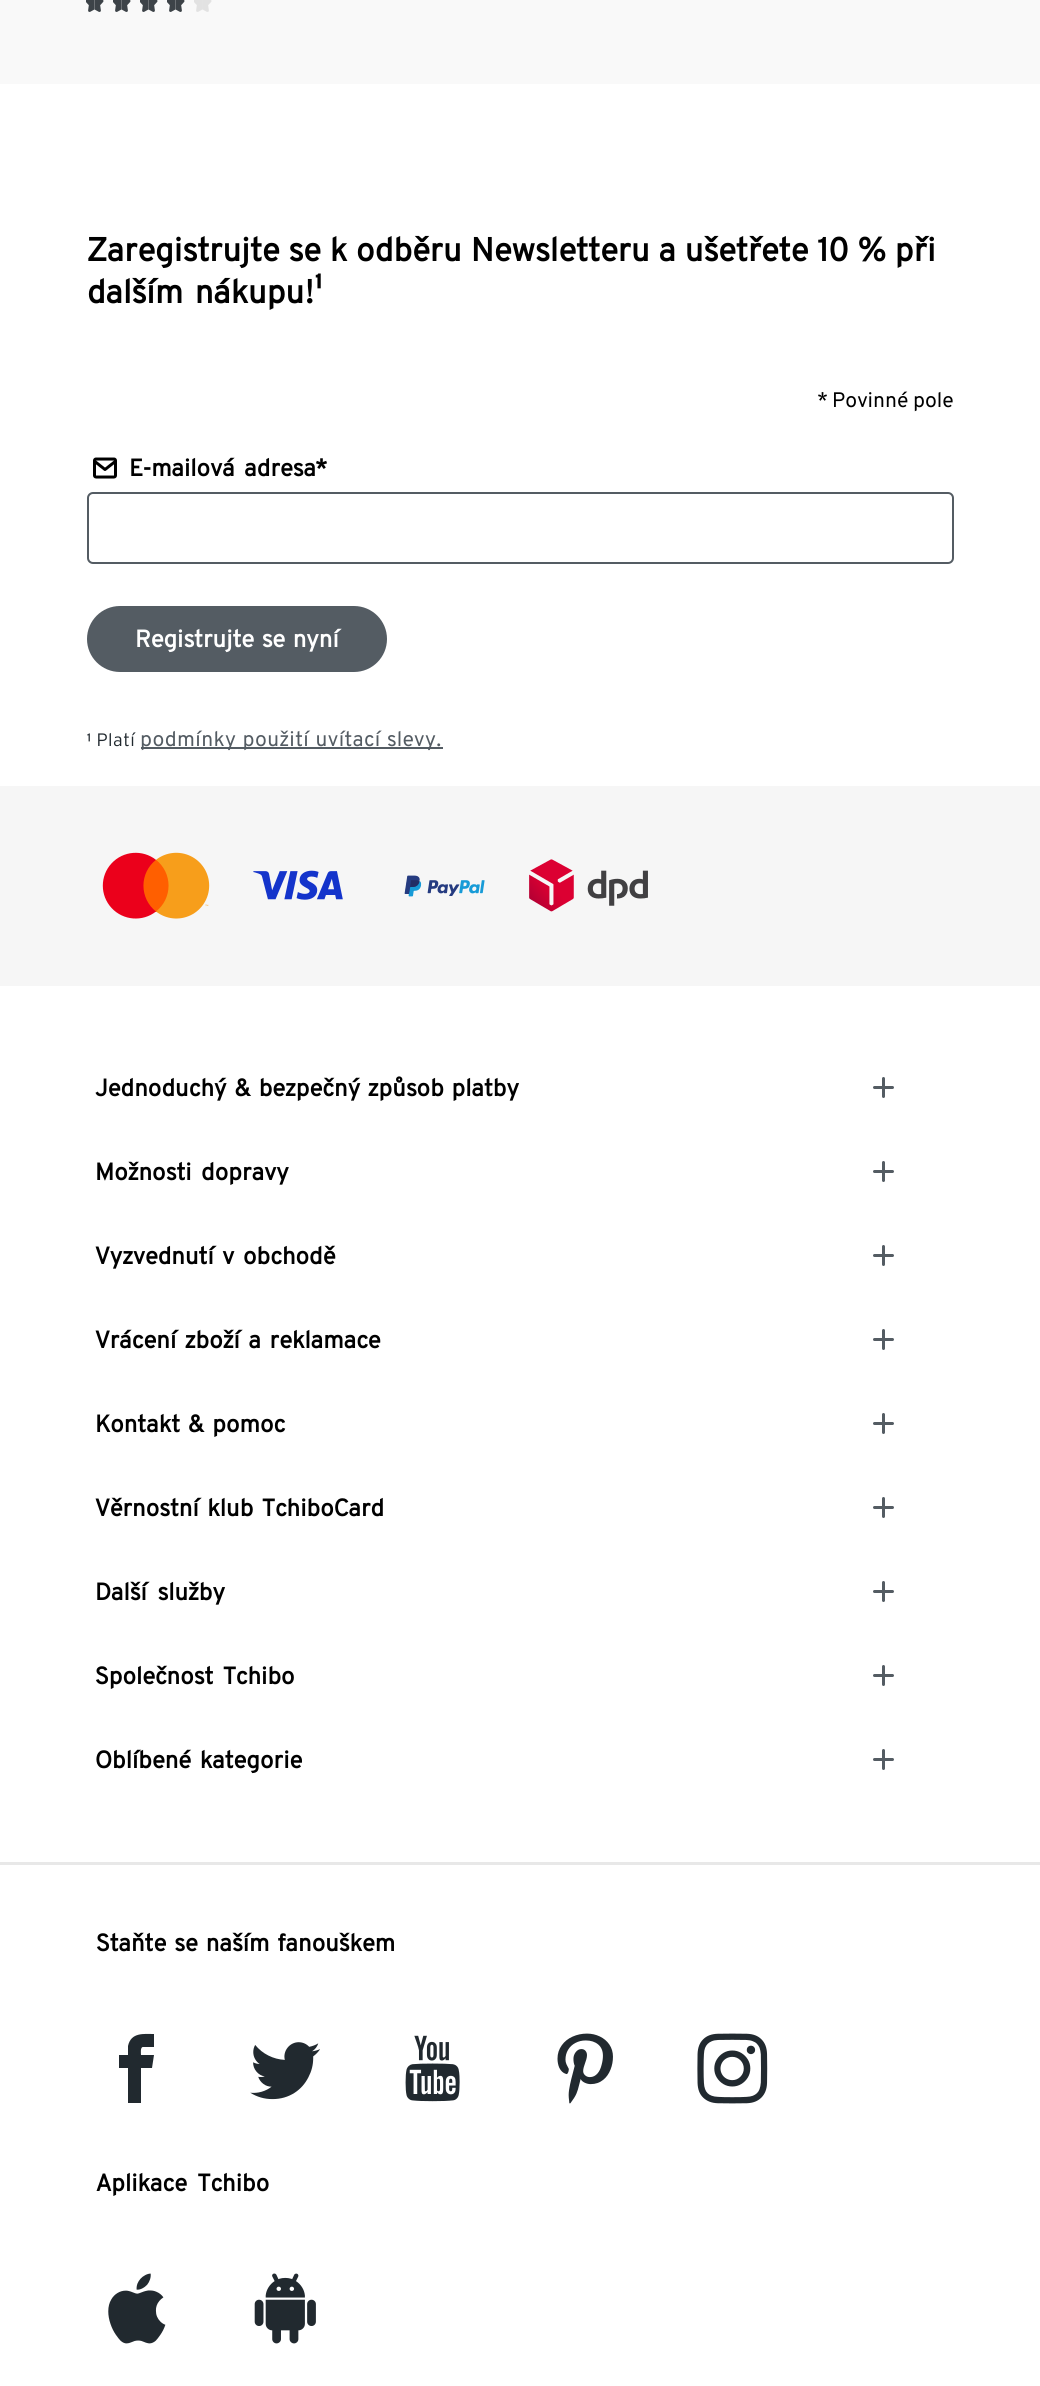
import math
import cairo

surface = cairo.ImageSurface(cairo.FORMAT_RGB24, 1040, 2386)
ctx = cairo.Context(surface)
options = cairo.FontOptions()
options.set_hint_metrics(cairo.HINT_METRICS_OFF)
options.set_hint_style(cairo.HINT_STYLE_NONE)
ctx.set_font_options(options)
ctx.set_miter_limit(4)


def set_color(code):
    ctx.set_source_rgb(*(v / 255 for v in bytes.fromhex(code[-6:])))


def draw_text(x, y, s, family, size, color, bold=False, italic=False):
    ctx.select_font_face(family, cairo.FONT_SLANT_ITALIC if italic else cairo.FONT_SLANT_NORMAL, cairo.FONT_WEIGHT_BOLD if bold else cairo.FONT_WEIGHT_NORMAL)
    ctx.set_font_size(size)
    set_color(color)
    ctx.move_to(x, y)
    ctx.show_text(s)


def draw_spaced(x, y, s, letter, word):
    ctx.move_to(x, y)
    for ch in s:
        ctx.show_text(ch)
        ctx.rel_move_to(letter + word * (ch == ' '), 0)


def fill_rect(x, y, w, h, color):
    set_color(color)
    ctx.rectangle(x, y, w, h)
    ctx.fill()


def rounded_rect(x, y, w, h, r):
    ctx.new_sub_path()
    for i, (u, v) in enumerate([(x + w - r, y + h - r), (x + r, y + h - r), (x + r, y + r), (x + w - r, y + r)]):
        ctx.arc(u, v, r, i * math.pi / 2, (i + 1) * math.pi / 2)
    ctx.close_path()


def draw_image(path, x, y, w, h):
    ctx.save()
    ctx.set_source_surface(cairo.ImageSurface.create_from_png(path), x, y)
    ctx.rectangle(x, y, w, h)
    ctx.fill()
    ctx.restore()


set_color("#ffffff")
ctx.paint()
fill_rect(0, 0, 1040, 84, "#f9f9f9")
draw_image("assets/img1.png", 86, 0, 18, 12)
draw_image("assets/img1.png", 113, 0, 18, 12)
draw_image("assets/img1.png", 140, 0, 18, 12)
draw_image("assets/img1.png", 167, 0, 18, 12)
draw_image("assets/img2.png", 194, 0, 18, 12)
ctx.select_font_face("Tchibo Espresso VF", cairo.FONT_SLANT_NORMAL, cairo.FONT_WEIGHT_BOLD)
ctx.set_font_size(33)
set_color("#000000")
draw_spaced(87, 261, "Zaregistrujte se k odběru Newsletteru a ušetřete 10 % při", 0, 1.25)
draw_spaced(87, 303, "dalším nákupu!¹", 0, 4)
draw_text(818, 407, "* Povinné pole", "Tchibo Espresso VF", 21, "#000000")
draw_image("assets/img3.png", 93, 457, 24, 22)
ctx.select_font_face("Tchibo Espresso VF", cairo.FONT_SLANT_NORMAL, cairo.FONT_WEIGHT_BOLD)
ctx.set_font_size(24)
draw_spaced(129, 476, "E-mailová adresa*", 0, 4)
rounded_rect(88, 493, 865, 70, 5)
set_color("#545c63")
ctx.stroke()
rounded_rect(87, 606, 300, 66, 33)
ctx.fill()
set_color("#ffffff")
draw_spaced(135, 647, "Registrujte se nyní", 0, 2)
ctx.select_font_face("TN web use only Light")
ctx.set_font_size(18)
set_color("#21292f")
draw_spaced(87, 746, "¹ Platí", 0.4, 0)
fill_rect(141, 747, 302, 2, "#545c63")
ctx.select_font_face("Tchibo Espresso VF")
ctx.set_font_size(21)
draw_spaced(140, 746, "podmínky použití uvítací slevy.", 0.4, 1)
fill_rect(0, 786, 1040, 200, "#f6f6f6")
draw_image("assets/img4.png", 102, 852, 108, 67)
draw_image("assets/img5.png", 253, 870, 90, 30)
draw_image("assets/img6.png", 404, 875, 81, 22)
draw_image("assets/img7.png", 529, 859, 119, 53)
ctx.select_font_face("Tchibo Espresso VF", cairo.FONT_SLANT_NORMAL, cairo.FONT_WEIGHT_BOLD)
ctx.set_font_size(24)
set_color("#000000")
draw_spaced(95, 1096, "Jednoduchý & bezpečný způsob platby", 0, 2)
draw_image("assets/img8.png", 873, 1077, 21, 21)
draw_spaced(95, 1180, "Možnosti dopravy", 0, 4)
draw_image("assets/img8.png", 873, 1161, 21, 21)
draw_spaced(95, 1264, "Vyzvednutí v obchodě", 0, 3)
draw_image("assets/img8.png", 873, 1245, 21, 21)
draw_spaced(95, 1348, "Vrácení zboží a reklamace", 0, 3)
draw_image("assets/img8.png", 873, 1329, 21, 21)
draw_spaced(95, 1432, "Kontakt & pomoc", 0, 2)
draw_image("assets/img8.png", 873, 1413, 21, 21)
draw_spaced(95, 1516, "Věrnostní klub TchiboCard", 0, 3)
draw_image("assets/img8.png", 873, 1497, 21, 21)
draw_spaced(95, 1600, "Další služby", 0, 5)
draw_image("assets/img8.png", 873, 1581, 21, 21)
draw_spaced(95, 1684, "Společnost Tchibo", 0, 4)
draw_image("assets/img8.png", 873, 1665, 21, 21)
draw_spaced(95, 1768, "Oblíbené kategorie", 0, 3)
draw_image("assets/img8.png", 873, 1749, 21, 21)
fill_rect(0, 1862, 1040, 3, "#e8e8e8")
set_color("#000000")
draw_spaced(96, 1951, "Staňte se naším fanouškem", 0, 2.5)
set_color("#21292f")
ctx.new_path()
ctx.move_to(143, 2047)
ctx.line_to(154, 2047)
ctx.line_to(154, 2034)
ctx.curve_to(144, 2034, 131, 2032, 128, 2046)
ctx.line_to(128, 2055)
ctx.line_to(119, 2055)
ctx.line_to(119, 2068)
ctx.line_to(128, 2068)
ctx.line_to(128, 2103)
ctx.line_to(141, 2103)
ctx.line_to(141, 2068)
ctx.line_to(152, 2068)
ctx.line_to(154, 2055)
ctx.line_to(141, 2055)
ctx.curve_to(141, 2054, 140, 2047, 143, 2047)
ctx.close_path()
ctx.fill()
draw_image("assets/img9.png", 250, 2042, 70, 58)
draw_image("assets/img10.png", 405, 2035, 55, 67)
draw_image("assets/img11.png", 557, 2033, 56, 71)
draw_image("assets/img12.png", 697, 2033, 71, 71)
set_color("#000000")
draw_spaced(96, 2191, "Aplikace Tchibo", 0, 5)
draw_image("assets/img13.png", 108, 2273, 58, 71)
draw_image("assets/img14.png", 254, 2273, 62, 71)
surface.write_to_png("output.png")
